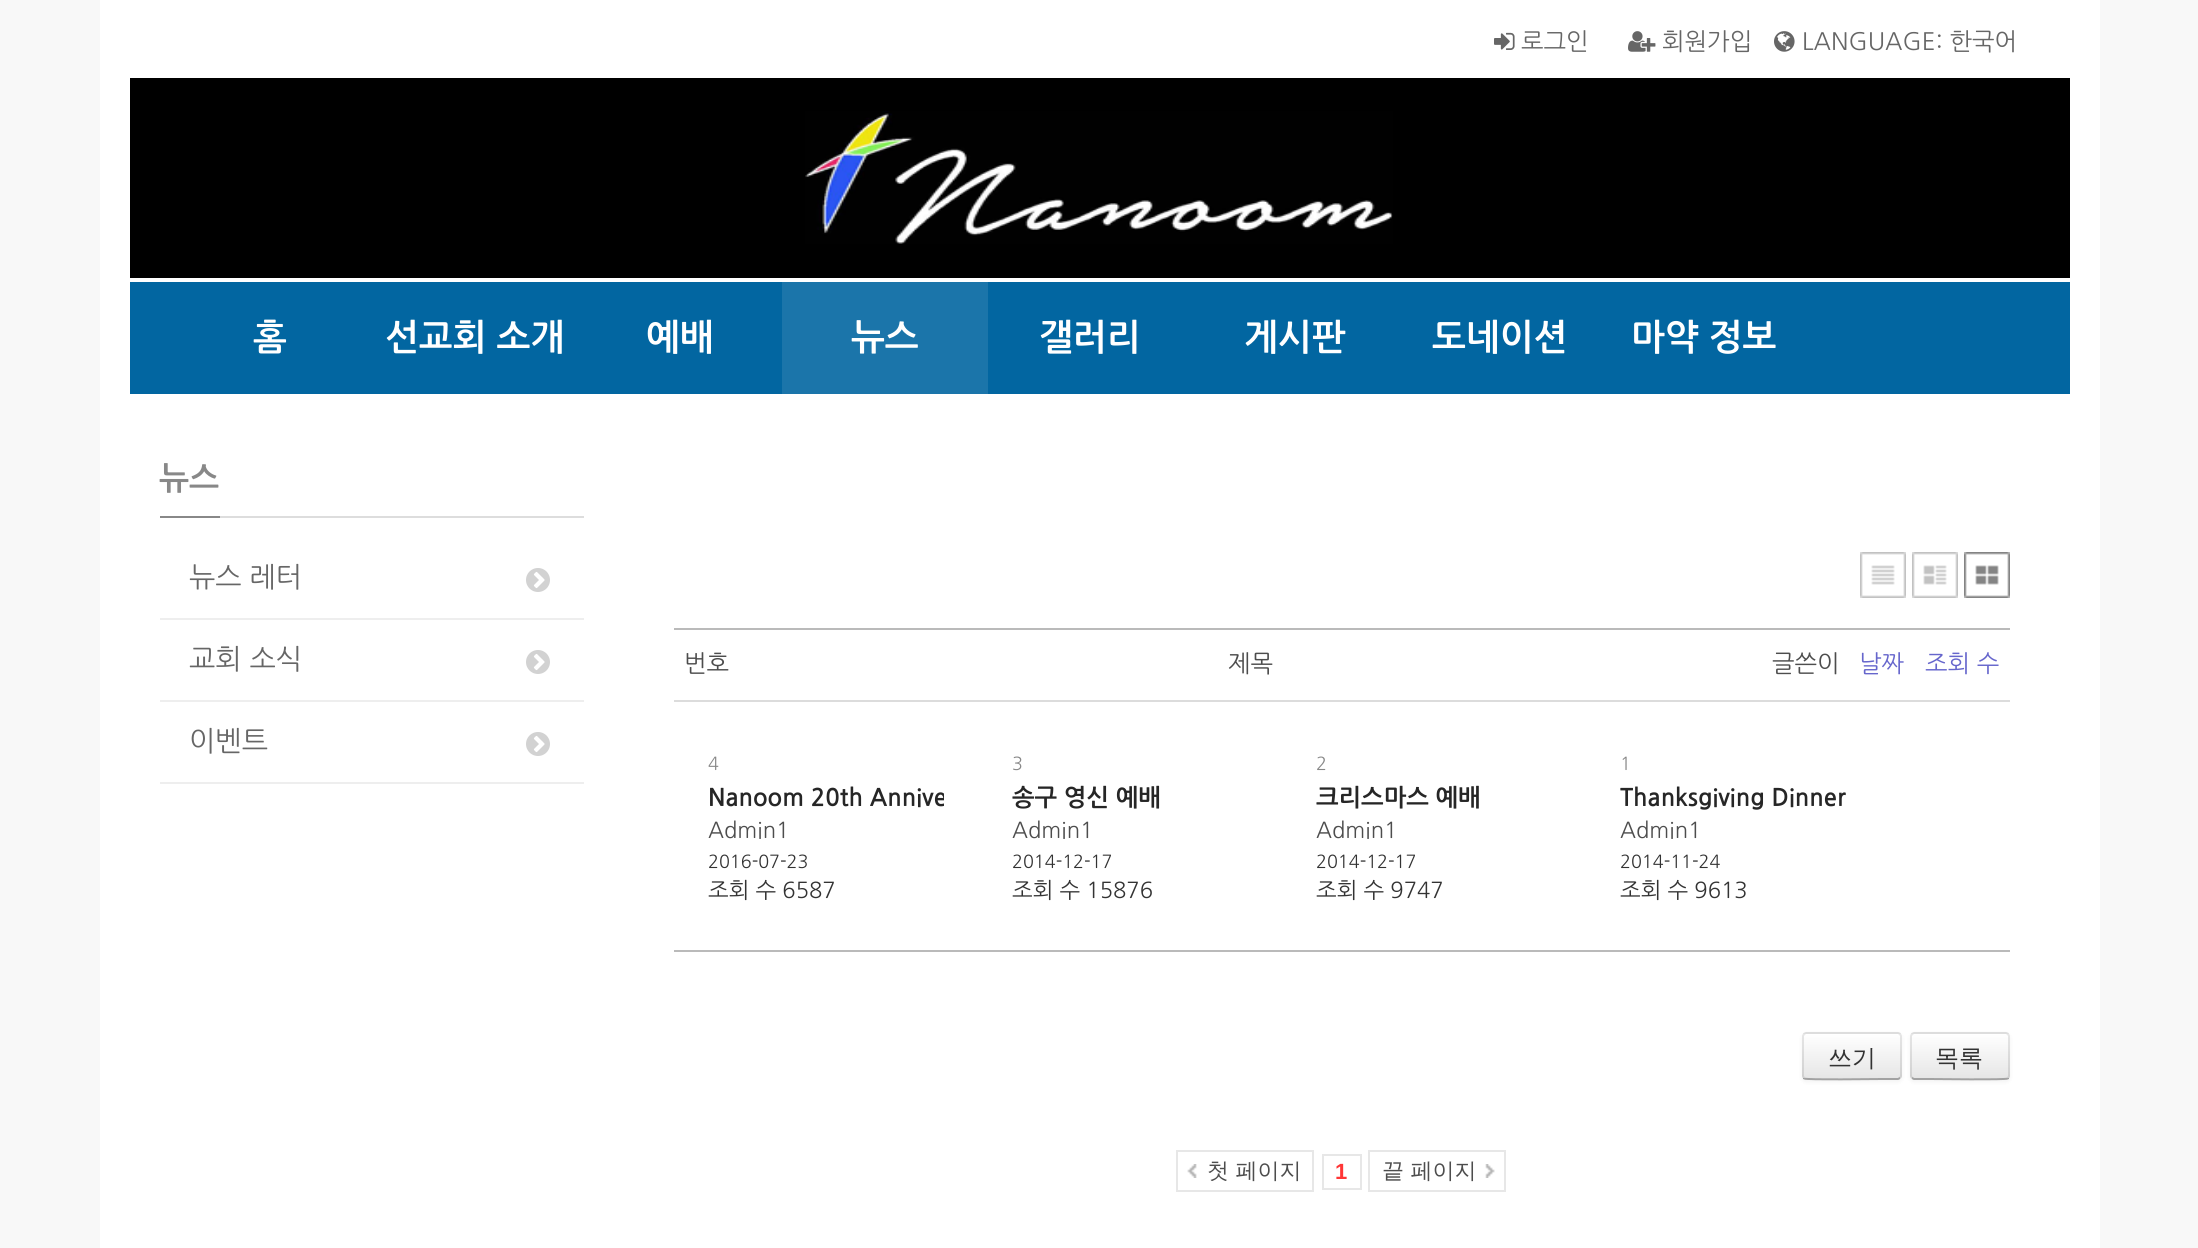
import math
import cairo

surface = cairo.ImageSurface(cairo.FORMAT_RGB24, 2198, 1248)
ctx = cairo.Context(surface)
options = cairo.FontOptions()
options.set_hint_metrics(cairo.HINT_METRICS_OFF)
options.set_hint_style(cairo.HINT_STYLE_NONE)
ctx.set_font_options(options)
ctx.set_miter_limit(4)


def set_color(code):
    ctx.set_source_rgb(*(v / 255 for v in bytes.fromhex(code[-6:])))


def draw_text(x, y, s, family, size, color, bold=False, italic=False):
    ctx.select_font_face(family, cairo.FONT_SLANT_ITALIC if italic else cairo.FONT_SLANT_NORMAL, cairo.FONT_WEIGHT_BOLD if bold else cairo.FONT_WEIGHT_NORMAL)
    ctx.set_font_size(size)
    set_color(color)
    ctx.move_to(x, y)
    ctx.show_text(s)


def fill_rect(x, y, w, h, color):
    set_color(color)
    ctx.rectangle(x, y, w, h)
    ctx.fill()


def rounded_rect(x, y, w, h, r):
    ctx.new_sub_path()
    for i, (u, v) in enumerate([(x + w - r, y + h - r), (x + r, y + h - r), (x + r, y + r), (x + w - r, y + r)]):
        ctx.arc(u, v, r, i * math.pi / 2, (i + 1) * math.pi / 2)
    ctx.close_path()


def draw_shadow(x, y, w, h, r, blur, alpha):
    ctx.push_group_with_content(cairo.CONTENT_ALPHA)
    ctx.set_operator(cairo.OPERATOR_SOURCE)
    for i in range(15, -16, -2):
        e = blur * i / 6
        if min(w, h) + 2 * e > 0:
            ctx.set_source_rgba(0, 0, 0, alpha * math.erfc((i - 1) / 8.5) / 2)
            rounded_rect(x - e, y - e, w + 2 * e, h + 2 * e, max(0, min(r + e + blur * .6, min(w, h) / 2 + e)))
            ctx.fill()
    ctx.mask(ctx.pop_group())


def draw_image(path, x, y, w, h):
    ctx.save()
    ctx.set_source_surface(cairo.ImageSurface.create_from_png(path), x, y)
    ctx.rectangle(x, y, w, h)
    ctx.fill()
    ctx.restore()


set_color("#f8f8f8")
ctx.paint()
fill_rect(100, 0, 2000, 1248, "#ffffff")
draw_image("assets/img1.png", 1494, 32, 21, 18)
draw_text(1521, 50, "로그인", "NanumGothic", 24, "#666666")
draw_image("assets/img2.png", 1628, 31, 28, 21)
draw_text(1662, 50, "회원가입", "NanumGothic", 24, "#666666")
draw_image("assets/img3.png", 1774, 31, 21, 21)
draw_text(1802, 50, "LANGUAGE: 한국어", "NanumGothic", 24, "#666666")
fill_rect(130, 78, 1940, 200, "#000000")
draw_image("assets/img4.png", 805, 111, 588, 133)
fill_rect(130, 282, 1940, 112, "#0266a1")
draw_text(253, 350, "홈", "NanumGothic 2", 36, "#ffffff", bold=True)
draw_text(385, 350, "선교회 소개", "NanumGothic 2", 36, "#ffffff", bold=True)
draw_text(646, 350, "예배", "NanumGothic 2", 36, "#ffffff", bold=True)
fill_rect(782, 282, 206, 112, "#1b75aa")
draw_text(851, 350, "뉴스", "NanumGothic 2", 36, "#ffffff", bold=True)
draw_text(1039, 350, "갤러리", "NanumGothic 2", 36, "#ffffff", bold=True)
draw_text(1244, 350, "게시판", "NanumGothic 2", 36, "#ffffff", bold=True)
draw_text(1432, 350, "도네이션", "NanumGothic 2", 36, "#ffffff", bold=True)
draw_text(1631, 350, "마약 정보", "NanumGothic 2", 36, "#ffffff", bold=True)
fill_rect(220, 516, 364, 2, "#dddddd")
fill_rect(160, 516, 60, 2, "#888888")
draw_text(159, 488, "뉴스", "NanumGothic", 32, "#888888", bold=True)
fill_rect(160, 618, 424, 2, "#eeeeee")
draw_text(189, 587, "뉴스 레터", "NanumGothic", 28, "#666666")
draw_image("assets/img5.png", 526, 568, 24, 24)
fill_rect(160, 700, 424, 2, "#eeeeee")
draw_text(189, 669, "교회 소식", "NanumGothic", 28, "#666666")
draw_image("assets/img5.png", 526, 650, 24, 24)
fill_rect(160, 782, 424, 2, "#eeeeee")
draw_text(189, 751, "이벤트", "NanumGothic", 28, "#666666")
draw_image("assets/img5.png", 526, 732, 24, 24)
draw_image("assets/img6.png", 1860, 552, 46, 46)
draw_image("assets/img7.png", 1912, 552, 46, 46)
draw_image("assets/img8.png", 1964, 552, 46, 46)
fill_rect(674, 628, 1336, 2, "#bababa")
draw_text(684, 672, "번호", "NanumGothic", 24, "#4d4d4d")
draw_text(1228, 672, "제목", "NanumGothic", 24, "#4d4d4d")
draw_text(1772, 672, "글쓴이", "NanumGothic", 24, "#4d4d4d")
draw_text(1859, 672, "날짜", "NanumGothic", 24, "#6666cc")
fill_rect(674, 700, 1336, 2, "#dcdcdc")
draw_text(1925, 672, "조회 수", "NanumGothic", 24, "#6666cc")
draw_text(708, 770, "4", "NanumGothic", 18, "#888888")
ctx.save()
ctx.rectangle(708, 752, 236, 180)
ctx.clip()
draw_text(708, 806, "Nanoom 20th Annive", "NanumGothic 2", 24, "#262626", bold=True)
ctx.restore()
draw_text(708, 838, "Admin1", "NanumGothic", 22, "#4d4d4d")
draw_text(708, 868, "2016-07-23", "NanumGothic", 18, "#333333")
draw_text(708, 898, "조회 수 6587", "NanumGothic", 22, "#333333")
draw_text(1012, 770, "3", "NanumGothic", 18, "#888888")
draw_text(1012, 806, "송구 영신 예배", "NanumGothic 2", 24, "#262626", bold=True)
draw_text(1012, 838, "Admin1", "NanumGothic", 22, "#4d4d4d")
draw_text(1012, 868, "2014-12-17", "NanumGothic", 18, "#333333")
draw_text(1012, 898, "조회 수 15876", "NanumGothic", 22, "#333333")
draw_text(1316, 770, "2", "NanumGothic", 18, "#888888")
draw_text(1316, 806, "크리스마스 예배", "NanumGothic 2", 24, "#262626", bold=True)
draw_text(1316, 838, "Admin1", "NanumGothic", 22, "#4d4d4d")
draw_text(1316, 868, "2014-12-17", "NanumGothic", 18, "#333333")
draw_text(1316, 898, "조회 수 9747", "NanumGothic", 22, "#333333")
draw_text(1620, 770, "1", "NanumGothic", 18, "#888888")
draw_text(1620, 806, "Thanksgiving Dinner", "NanumGothic 2", 24, "#262626", bold=True)
draw_text(1620, 838, "Admin1", "NanumGothic", 22, "#4d4d4d")
draw_text(1620, 868, "2014-11-24", "NanumGothic", 18, "#333333")
draw_text(1620, 898, "조회 수 9613", "NanumGothic", 22, "#333333")
fill_rect(674, 950, 1336, 2, "#bababa")
set_color("#000000")
draw_shadow(1802, 1034, 100, 48, 4, 2, 0.05)
set_color("#f5f5f5")
rounded_rect(1802, 1032, 100, 48, 4)
ctx.fill()
ctx.save()
rounded_rect(1802, 1032, 100, 48, 4)
ctx.clip()
gradient = cairo.LinearGradient(1852, 1034, 1852, 1078)
gradient.add_color_stop_rgba(0, 1, 1, 1, 1)
gradient.add_color_stop_rgba(1, 0.902, 0.902, 0.902, 1)
ctx.set_source(gradient)
ctx.rectangle(1802, 1034, 100, 44)
ctx.fill()
ctx.restore()
ctx.new_path()
ctx.move_to(1900, 1078)
ctx.line_to(1898, 1079)
ctx.line_to(1882.5, 1079)
ctx.curve_to(1874.5, 1079, 1806, 1080, 1804, 1078.5)
ctx.line_to(1804, 1078)
set_color("#a2a2a2")
ctx.stroke()
ctx.new_path()
ctx.move_to(1804, 1078)
ctx.line_to(1803, 1076)
ctx.line_to(1803, 1036)
ctx.line_to(1804, 1034)
ctx.line_to(1806, 1033)
ctx.line_to(1898, 1033)
ctx.line_to(1900, 1034)
ctx.line_to(1901, 1036)
ctx.line_to(1901, 1076)
ctx.line_to(1900, 1078)
ctx.set_source_rgba(0, 0, 0, 0.1)
ctx.stroke()
draw_text(1828, 1066, "쓰기", "WenQuanYi Zen Hei Medium", 24, "#333333")
set_color("#000000")
draw_shadow(1910, 1034, 100, 48, 4, 2, 0.05)
set_color("#f5f5f5")
rounded_rect(1910, 1032, 100, 48, 4)
ctx.fill()
ctx.save()
rounded_rect(1910, 1032, 100, 48, 4)
ctx.clip()
gradient = cairo.LinearGradient(1960, 1034, 1960, 1078)
gradient.add_color_stop_rgba(0, 1, 1, 1, 1)
gradient.add_color_stop_rgba(1, 0.902, 0.902, 0.902, 1)
ctx.set_source(gradient)
ctx.rectangle(1910, 1034, 100, 44)
ctx.fill()
ctx.restore()
ctx.new_path()
ctx.move_to(2008, 1078)
ctx.line_to(2008, 1078.5)
ctx.curve_to(2006, 1080, 1937.5, 1079, 1929.5, 1079)
ctx.line_to(1914, 1079)
ctx.line_to(1912, 1078)
set_color("#a2a2a2")
ctx.stroke()
ctx.new_path()
ctx.move_to(1912, 1078)
ctx.line_to(1911, 1076)
ctx.line_to(1911, 1036)
ctx.line_to(1912, 1034)
ctx.line_to(1914, 1033)
ctx.line_to(2006, 1033)
ctx.line_to(2008, 1034)
ctx.line_to(2009, 1036)
ctx.line_to(2009, 1076)
ctx.line_to(2008, 1078)
ctx.set_source_rgba(0, 0, 0, 0.1)
ctx.stroke()
draw_text(1935, 1066, "목록", "WenQuanYi Zen Hei Medium", 24, "#333333")
draw_image("assets/img9.png", 1187, 1164, 10, 14)
ctx.rectangle(1177, 1151, 136, 40)
set_color("#e7e7e7")
ctx.stroke()
draw_text(1207, 1178, "첫 페이지", "WenQuanYi Zen Hei Medium", 22, "#4d4d4d")
ctx.rectangle(1323, 1155, 38, 34)
set_color("#e7e7e7")
ctx.stroke()
draw_text(1335, 1179, "1", "Liberation Sans", 22, "#ff3636", bold=True)
draw_image("assets/img10.png", 1485, 1164, 10, 14)
ctx.rectangle(1369, 1151, 136, 40)
set_color("#e7e7e7")
ctx.stroke()
draw_text(1382, 1178, "끝 페이지", "WenQuanYi Zen Hei Medium", 22, "#4d4d4d")
surface.write_to_png("output.png")
